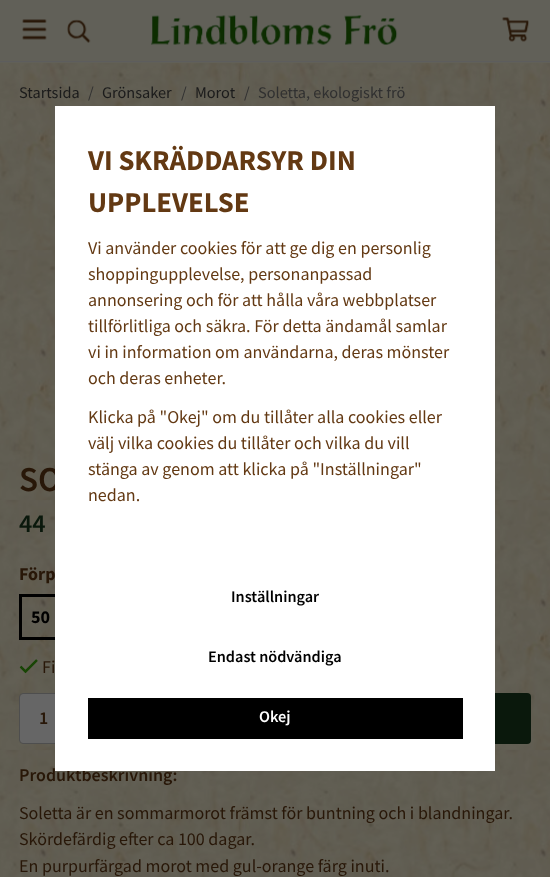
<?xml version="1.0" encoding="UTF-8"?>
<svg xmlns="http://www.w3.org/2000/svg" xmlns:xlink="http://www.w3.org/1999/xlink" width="550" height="877">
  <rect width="100%" height="100%" fill="#ffffff" />
  <image x="0" y="63" width="550" height="814" xlink:href="image1.png" />
  <rect width="550" height="63" fill="#616058" />
  <rect y="61" width="550" height="1" fill="#5d5d5d" />
  <image x="22" y="19" width="25" height="21" xlink:href="image2.png" />
  <image x="67" y="19" width="24" height="24" xlink:href="image3.png" />
  <image x="151" y="15" width="247" height="30" xlink:href="image4.png" />
  <image x="502" y="17" width="27" height="25" xlink:href="image5.png" />
  <rect x="20.5" y="595.5" width="87" height="43" fill="none" stroke="#000000" stroke-width="3" />
  <image x="19" y="659" width="19" height="15" xlink:href="image6.png" />
  <rect x="20" y="694" width="48" height="49" rx="2.5" fill="#666666" />
  <rect x="19.5" y="693.5" width="49" height="50" rx="3.5" fill="none" stroke="#4e4e4e" />
  <rect x="79" y="693" width="452" height="51" rx="4" fill="#0a180c" />
  <text x="19" y="98" style="font-family: Source Sans Pro; font-size: 16.25px; fill: #1b1b1b">Startsida</text>
  <text x="88" y="98" style="font-family: Source Sans Pro; font-size: 16.25px; fill: #303030">/</text>
  <text x="102" y="98" style="font-family: Source Sans Pro; font-size: 16.25px; fill: #1b1b1b">Grönsaker</text>
  <text x="181" y="98" style="font-family: Source Sans Pro; font-size: 16.25px; fill: #303030">/</text>
  <text x="195" y="98" style="font-family: Source Sans Pro; font-size: 16.25px; fill: #1b1b1b">Morot</text>
  <text x="244" y="98" style="font-family: Source Sans Pro; font-size: 16.25px; fill: #303030">/</text>
  <text x="258" y="98" style="font-family: Source Sans Pro; font-size: 16.25px; fill: #303030">Soletta, ekologiskt frö</text>
  <text x="19" y="491" style="font-family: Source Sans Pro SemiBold; font-size: 35px; font-weight: 600; fill: #281708">SO</text>
  <text x="19" y="532" style="font-family: Source Sans Pro SemiBold; font-size: 26px; font-weight: 600; fill: #0a180c">44</text>
  <text x="19" y="580" style="font-family: Source Sans Pro; font-size: 18px; font-weight: bold; fill: #281708">Förp</text>
  <text x="31" y="623" style="font-family: Source Sans Pro; font-size: 18px; font-weight: bold; fill: #000000">50</text>
  <text x="42" y="673" style="font-family: Source Sans Pro; font-size: 18px; fill: #281708">Fi</text>
  <text x="39" y="724" style="font-family: Source Sans Pro SemiBold; font-size: 18px; font-weight: 600; fill: #281708">1</text>
  <text x="19" y="781" style="font-family: Source Sans Pro SemiBold; font-size: 18px; font-weight: 600; fill: #281708">Produktbeskrivning:</text>
  <text x="19" y="819" style="font-family: Source Sans Pro; font-size: 18px; fill: #281708">Soletta är en sommarmorot främst för buntning och i blandningar.</text>
  <text x="19" y="845" style="font-family: Source Sans Pro; font-size: 18px; fill: #281708">Skördefärdig efter ca 100 dagar.</text>
  <text x="19" y="872" style="font-family: Source Sans Pro; font-size: 18px; fill: #281708">En purpurfärgad morot med gul-orange färg inuti.</text>
  <rect x="55" y="106" width="440" height="665" fill="#ffffff" />
  <text x="88" y="170" style="font-family: Source Sans Pro; font-size: 28.75px; font-weight: bold; fill: #633913">VI SKRÄDDARSYR DIN</text>
  <text x="88" y="212" style="font-family: Source Sans Pro; font-size: 28.75px; font-weight: bold; fill: #633913">UPPLEVELSE</text>
  <text x="88" y="254" style="font-family: Source Sans Pro; font-size: 18px; fill: #633913">Vi använder cookies för att ge dig en personlig</text>
  <text x="88" y="280" style="font-family: Source Sans Pro; font-size: 18px; fill: #633913">shoppingupplevelse, personanpassad</text>
  <text x="88" y="306" style="font-family: Source Sans Pro; font-size: 18px; fill: #633913">annonsering och för att hålla våra webbplatser</text>
  <text x="88" y="332" style="font-family: Source Sans Pro; font-size: 18px; fill: #633913">tillförlitliga och säkra. För detta ändamål samlar</text>
  <text x="88" y="358" style="font-family: Source Sans Pro; font-size: 18px; fill: #633913">vi in information om användarna, deras mönster</text>
  <text x="88" y="384" style="font-family: Source Sans Pro; font-size: 18px; fill: #633913">och deras enheter.</text>
  <text x="88" y="423" style="font-family: Source Sans Pro; font-size: 18px; fill: #633913">Klicka på "Okej" om du tillåter alla cookies eller</text>
  <text x="88" y="449" style="font-family: Source Sans Pro; font-size: 18px; fill: #633913">välj vilka cookies du tillåter och vilka du vill</text>
  <text x="88" y="475" style="font-family: Source Sans Pro; font-size: 18px; fill: #633913">stänga av genom att klicka på "Inställningar"</text>
  <text x="88" y="501" style="font-family: Source Sans Pro; font-size: 18px; fill: #633913">nedan.</text>
  <text x="231" y="602" style="font-family: Source Sans Pro SemiBold; font-size: 16.25px; font-weight: 600; fill: #000000">Inställningar</text>
  <text x="208" y="662" style="font-family: Source Sans Pro SemiBold; font-size: 16.25px; font-weight: 600; fill: #000000">Endast nödvändiga</text>
  <rect x="88" y="698" width="375" height="41" fill="#000000" />
  <text x="259" y="722" style="font-family: Source Sans Pro SemiBold; font-size: 16.25px; font-weight: 600; fill: #ffffff">Okej</text>
</svg>
